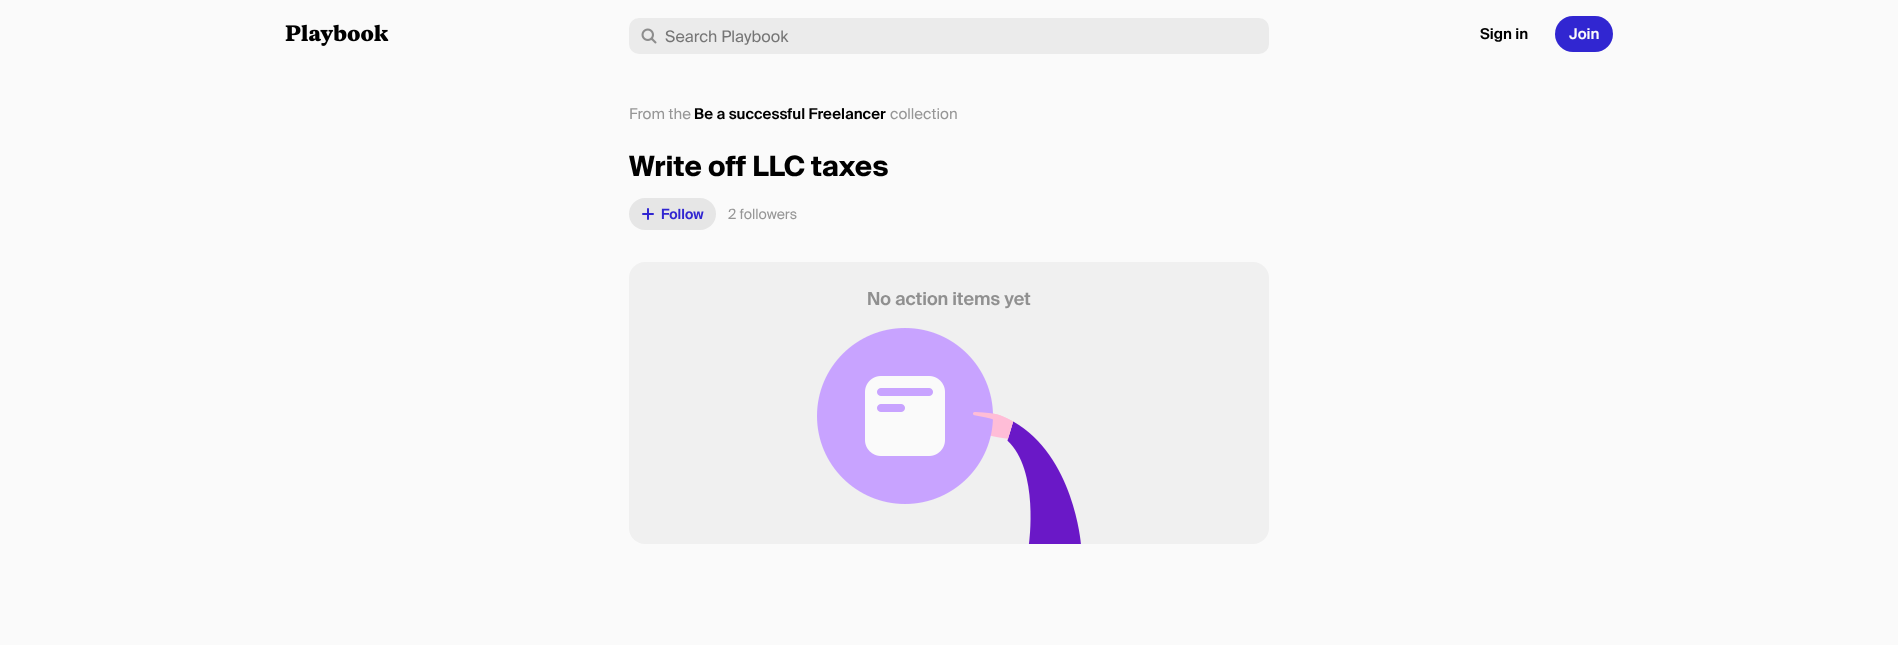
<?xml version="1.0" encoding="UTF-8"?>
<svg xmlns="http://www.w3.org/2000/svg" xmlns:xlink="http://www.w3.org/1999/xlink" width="1898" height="645">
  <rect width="100%" height="100%" fill="#fafafa" />
  <image x="285" y="24" width="104" height="22" xlink:href="image1.png" />
  <rect x="629" y="18" width="640" height="36" rx="10" fill="#ebebeb" />
  <image x="641" y="28" width="16" height="16" xlink:href="image2.png" />
  <rect x="1555" y="16" width="58" height="36" rx="18" fill="#3126d1" />
  <rect x="629" y="198" width="87" height="32" rx="16" fill="#e6e6e6" />
  <path d="M 653 214 h -10 m 5 5 v -10" fill="none" stroke="#3126d1" stroke-width="2" stroke-linecap="round" stroke-linejoin="round" />
  <rect x="629" y="262" width="640" height="282" rx="16" fill="#f0f0f0" />
  <image x="817" y="328" width="264" height="216" xlink:href="image3.png" />
  <text x="665" y="42" style="font-family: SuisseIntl; font-size: 16px; fill: #757575">Search Playbook</text>
  <text x="1480" y="39" style="font-family: SuisseIntl; font-size: 15px; font-weight: 600; fill: #000000">Sign in</text>
  <text x="1569" y="39" style="font-family: SuisseIntl; font-size: 15px; font-weight: 600; fill: #fafafa">Join</text>
  <text x="629" y="119" style="font-family: SuisseIntl; font-size: 15px; fill: #969696">From the</text>
  <text x="694" y="119" style="font-family: SuisseIntl; font-size: 15px; font-weight: 600; fill: #000000">Be a successful Freelancer</text>
  <text x="890" y="119" style="font-family: SuisseIntl; font-size: 15px; fill: #969696">collection</text>
  <text x="629" y="176" style="font-family: SuisseIntl; font-size: 28px; font-weight: bold; fill: #000000">Write off LLC taxes</text>
  <text x="661" y="219" style="font-family: SuisseIntl; font-size: 14px; font-weight: 600; fill: #3126d1">Follow</text>
  <text x="728" y="219" style="font-family: SuisseIntl; font-size: 14px; fill: #969696">2 followers</text>
  <text x="867" y="305" style="font-family: SuisseIntl; font-size: 18px; font-weight: 600; fill: #909090">No action items yet</text>
</svg>
